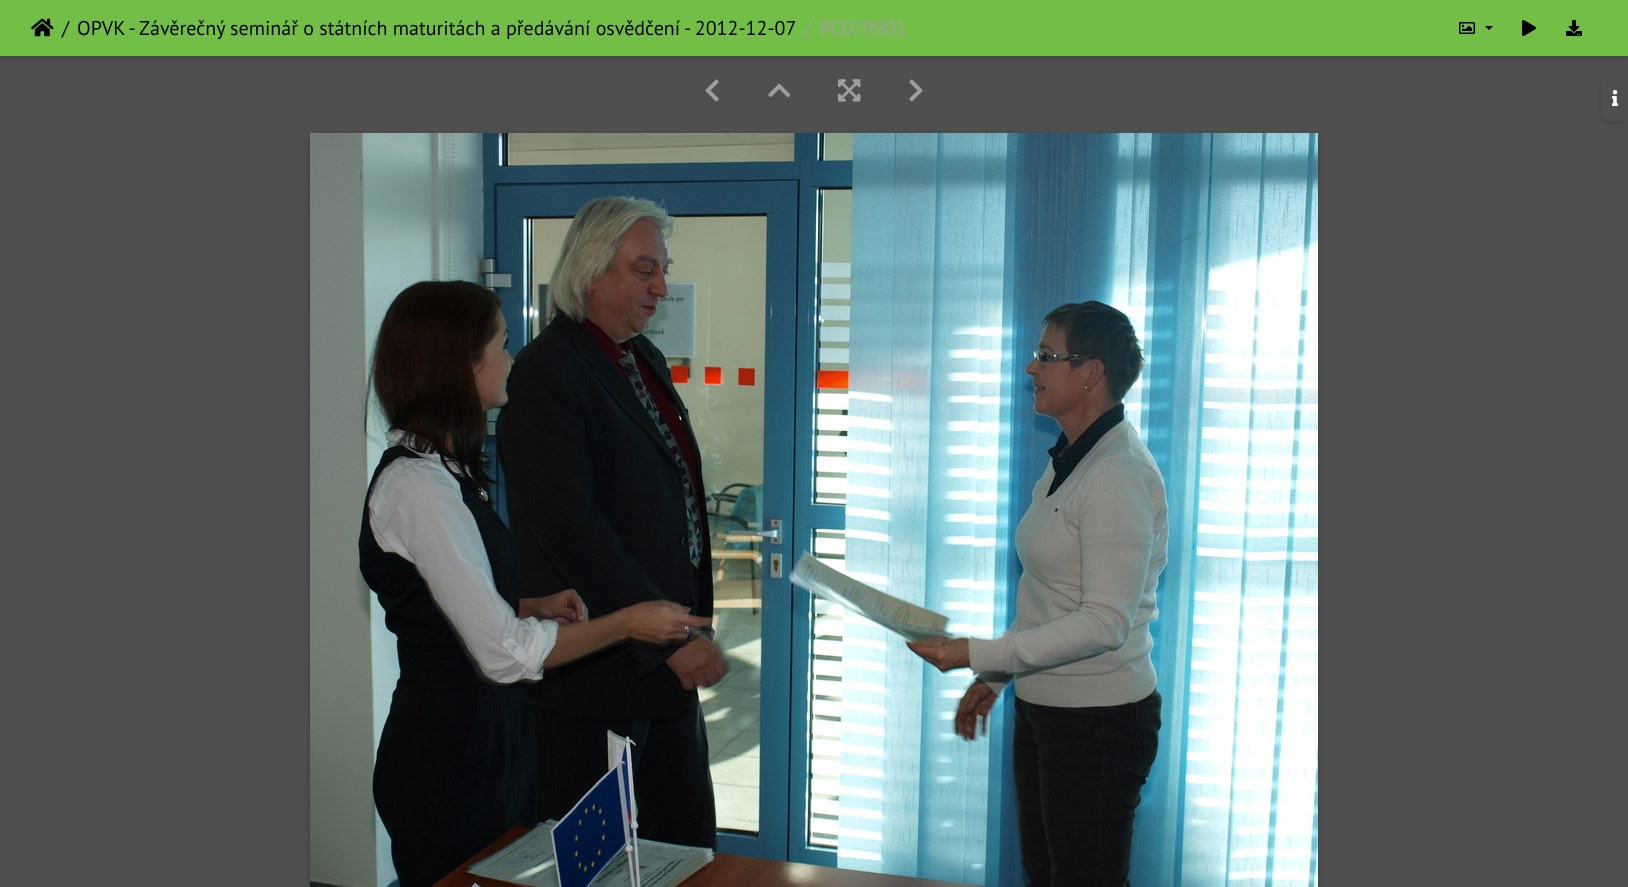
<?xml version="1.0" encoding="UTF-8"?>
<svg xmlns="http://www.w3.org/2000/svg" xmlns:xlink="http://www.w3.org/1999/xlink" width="1628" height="887">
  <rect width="100%" height="100%" fill="#4f4f4f" />
  <rect x="1" y="4" width="1626" height="54" fill="#000000" fill-opacity="0.2" filter="blur(2.5px)" />
  <rect width="1628" height="56" fill="#73be46" />
  <image x="31" y="18" width="23" height="19" xlink:href="image1.png" />
  <image x="1459" y="22" width="16" height="12" xlink:href="image2.png" />
  <path d="M 1485 26 h 8 l -4 4 z" fill="#000000" />
  <image x="1522" y="20" width="14" height="16" xlink:href="image3.png" />
  <image x="1566" y="20" width="16" height="16" xlink:href="image4.png" />
  <image x="705" y="79" width="14" height="23" xlink:href="image5.png" />
  <image x="768" y="83" width="22" height="14" xlink:href="image6.png" />
  <image x="838" y="79" width="23" height="23" xlink:href="image7.png" />
  <image x="909" y="79" width="14" height="23" xlink:href="image8.png" />
  <rect x="1602" y="79" width="25" height="44" rx="9" fill="#000000" fill-opacity="0.2" filter="blur(2.5px)" />
  <path d="M 1611 75 h 17 v 46 h -17 c -5.5 0 -10 -4.5 -10 -10 v -26 c 0 -5.5 4.5 -10 10 -10 z" fill="#4f4f4f" />
  <path d="M 1611 75 h 17 v 46 h -17 c -6 0 -10 -4 -10 -10 v -26 c 0 -6 4 -10 10 -10 z m 0 1 h 17 v 44 h -17 c -5 0 -9 -4 -9 -9 v -26 c 0 -5 4 -9 9 -9 z" fill="#4f4f4f" fill-rule="evenodd" />
  <image x="1612" y="90" width="6" height="16" xlink:href="image9.png" />
  <rect x="310" y="136" width="1008" height="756" fill="#000000" fill-opacity="0.23" filter="blur(3px)" />
  <image x="310" y="133" width="1008" height="754" xlink:href="image10.png" />
  <text x="62" y="35" style="font-family: PT Sans; font-size: 20px; fill: #000000">/</text>
  <text x="77" y="35" style="font-family: PT Sans; font-size: 20px; fill: #000000">OPVK - Závěrečný seminář o státních maturitách a předávání osvědčení - 2012-12-07</text>
  <text x="804" y="35" style="font-family: PT Sans; font-size: 20px; fill: #9e9e9e">/</text>
  <text x="819" y="35" style="font-family: PT Sans; font-size: 20px; fill: #9e9e9e">PC079901</text>
</svg>
